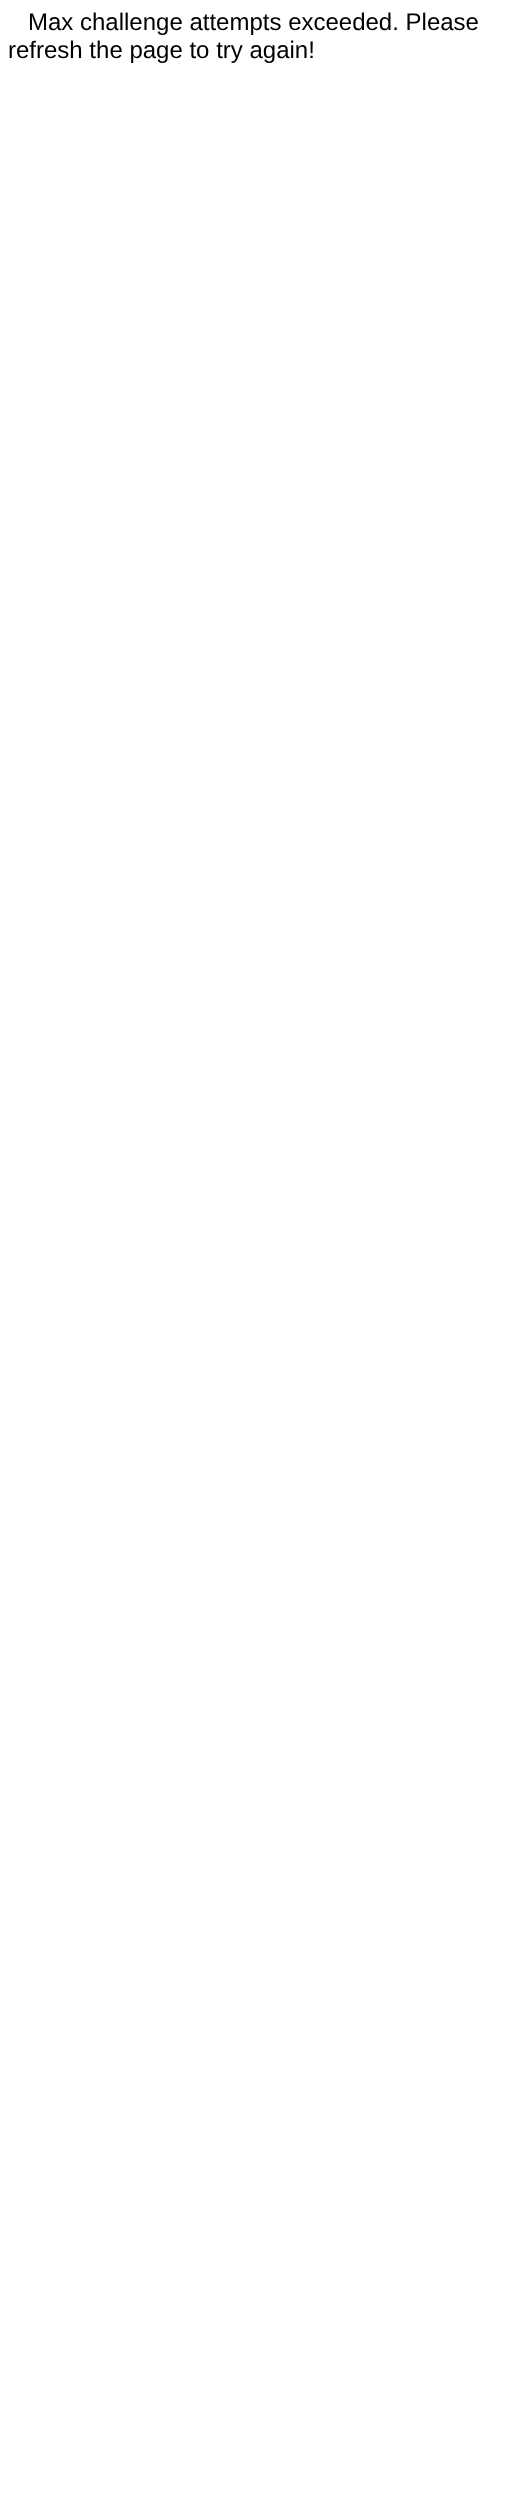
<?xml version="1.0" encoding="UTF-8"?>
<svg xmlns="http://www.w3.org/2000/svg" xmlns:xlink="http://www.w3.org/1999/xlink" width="511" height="2519">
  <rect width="100%" height="100%" fill="#ffffff" />
  <text x="28" y="30" style="font-family: Liberation Sans; font-size: 24px; fill: #000000">Max challenge attempts exceeded. Please</text>
  <text x="8" y="58" style="font-family: Liberation Sans; font-size: 24px; fill: #000000">refresh the page to try again!</text>
</svg>
